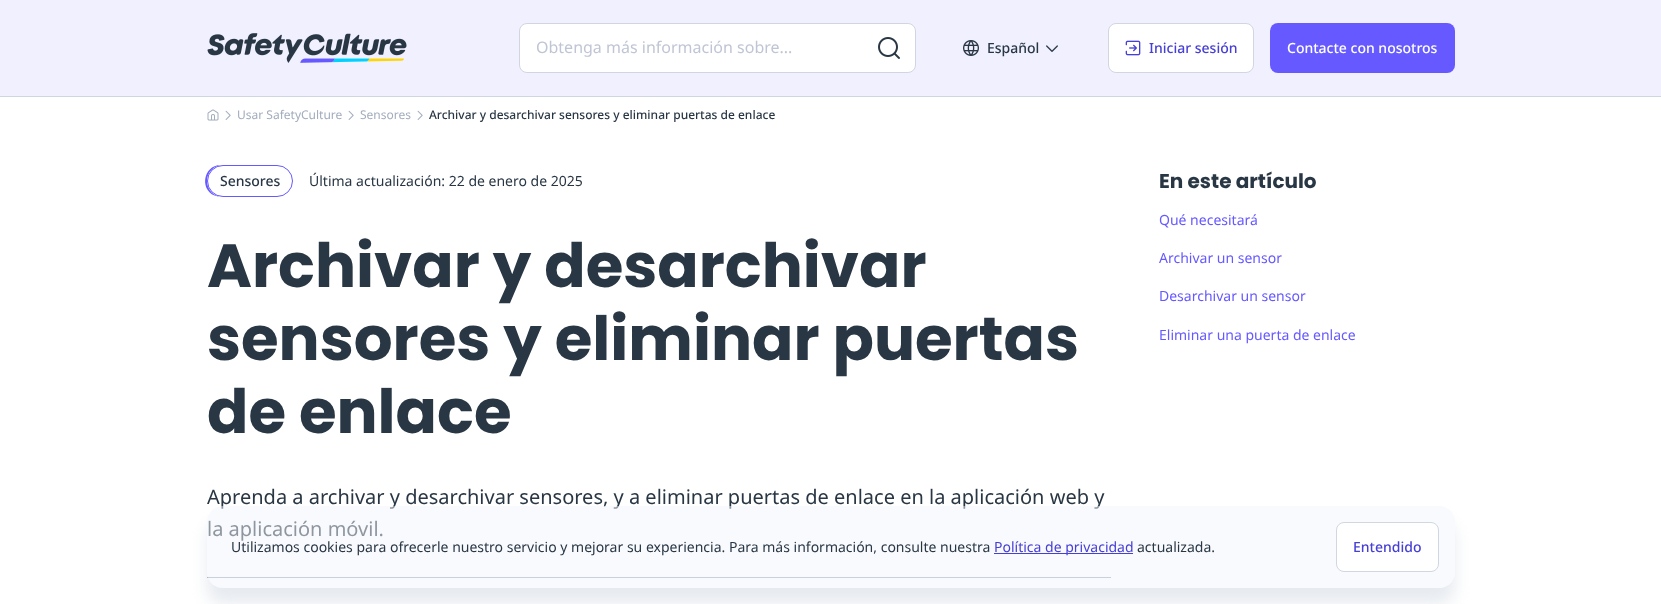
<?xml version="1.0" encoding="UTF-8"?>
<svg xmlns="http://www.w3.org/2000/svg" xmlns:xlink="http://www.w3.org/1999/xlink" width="1661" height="604">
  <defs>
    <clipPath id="clip1"><path d="M 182 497 h 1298 v 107 h -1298 z m 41 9 h 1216 c 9 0 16 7 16 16 v 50 c 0 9 -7 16 -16 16 h -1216 c -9 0 -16 -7 -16 -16 v -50 c 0 -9 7 -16 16 -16 z" clip-rule="evenodd" /></clipPath>
  </defs>
  <rect width="100%" height="100%" fill="#ffffff" />
  <rect width="1661" height="96" fill="#f0f0ff" />
  <rect y="96" width="1661" height="1" fill="#d0d6e1" />
  <image x="207" y="33" width="200" height="30" xlink:href="image1.png" />
  <rect x="519.5" y="23.5" width="396" height="49" rx="7.5" fill="#ffffff" stroke="#d0d6e1" />
  <image x="878" y="37" width="22" height="22" xlink:href="image2.png" />
  <image x="963" y="40" width="16" height="16" xlink:href="image3.png" />
  <image x="1046" y="45" width="12" height="7" xlink:href="image4.png" />
  <rect x="1108.5" y="23.5" width="145" height="49" rx="7.5" fill="#ffffff" stroke="#d0d7e1" />
  <image x="1125" y="40" width="16" height="16" xlink:href="image5.png" />
  <rect x="1270" y="23" width="185" height="50" rx="8" fill="#6559ff" />
  <image x="207" y="109" width="12" height="12" xlink:href="image6.png" />
  <image x="225" y="110" width="6" height="10" xlink:href="image7.png" />
  <image x="348" y="110" width="6" height="10" xlink:href="image7.png" />
  <image x="417" y="110" width="6" height="10" xlink:href="image7.png" />
  <path d="M 221 165 c -19 0 -22 28 -3 31.5 l 5 0.5 c -9 0 -16 -7 -16 -16 c 0 -9 7 -16 16 -16 z" fill="#6559ff" />
  <rect x="207.5" y="165.5" width="85" height="31" rx="15.5" fill="none" stroke="#6559ff" />
  <rect x="207" y="577" width="904" height="1" fill="#a2acbd" />
  <g clip-path="url(#clip1)">
    <rect x="207" y="522" width="1248" height="82" rx="16" fill="#d0d7e1" fill-opacity="0.5" filter="blur(8px)" />
  </g>
  <text x="536" y="53" style="font-family: Noto Sans; font-size: 16px; fill: #bfc5d4">Obtenga más información sobre...</text>
  <text x="987" y="53" style="font-family: Noto Sans; font-size: 14px; font-weight: 500; fill: #293745">Español</text>
  <text x="1149" y="53" style="font-family: Noto Sans; font-size: 14px; font-weight: 500; fill: #4740d4">Iniciar sesión</text>
  <text x="1287" y="53" style="font-family: Noto Sans; font-size: 14px; font-weight: 500; fill: #ffffff">Contacte con nosotros</text>
  <text x="237" y="119" style="font-family: Noto Sans; font-size: 12px; fill: #a2acbd">Usar SafetyCulture</text>
  <text x="360" y="119" style="font-family: Noto Sans; font-size: 12px; fill: #a2acbd">Sensores</text>
  <text x="429" y="119" style="font-family: Noto Sans; font-size: 12px; font-weight: 500; fill: #293745">Archivar y desarchivar sensores y eliminar puertas de enlace</text>
  <text x="220" y="186" style="font-family: Noto Sans; font-size: 14px; font-weight: 500; fill: #293745">Sensores</text>
  <text x="309" y="186" style="font-family: Noto Sans; font-size: 14px; fill: #293745">Última actualización: 22 de enero de 2025</text>
  <text x="207" y="287" style="font-family: Poppins; font-size: 61px; font-weight: bold; fill: #293745">Archivar y desarchivar</text>
  <text x="207" y="360" style="font-family: Poppins; font-size: 61px; font-weight: bold; fill: #293745">sensores y eliminar puertas</text>
  <text x="207" y="433" style="font-family: Poppins; font-size: 61px; font-weight: bold; fill: #293745">de enlace</text>
  <text x="207" y="504" style="font-family: Noto Sans; font-size: 20px; fill: #293745">Aprenda a archivar y desarchivar sensores, y a eliminar puertas de enlace en la aplicación web y</text>
  <text x="207" y="536" style="font-family: Noto Sans; font-size: 20px; fill: #293745">la aplicación móvil.</text>
  <text x="1159" y="188" style="font-family: Poppins; font-size: 20px; font-weight: bold; fill: #293745">En este artículo</text>
  <text x="1159" y="225" style="font-family: Noto Sans; font-size: 14px; fill: #6559ff">Qué necesitará</text>
  <text x="1159" y="263" style="font-family: Noto Sans; font-size: 14px; fill: #6559ff">Archivar un sensor</text>
  <text x="1159" y="301" style="font-family: Noto Sans; font-size: 14px; fill: #6559ff">Desarchivar un sensor</text>
  <text x="1159" y="340" style="font-family: Noto Sans; font-size: 14px; fill: #6559ff">Eliminar una puerta de enlace</text>
  <rect x="207" y="506" width="1248" height="82" rx="16" fill="#f3f6fb" fill-opacity="0.5" />
  <text x="231" y="552" style="font-family: Noto Sans; font-size: 14px; fill: #293745">Utilizamos cookies para ofrecerle nuestro servicio y mejorar su experiencia. Para más información, consulte nuestra</text>
  <rect x="994" y="553" width="139" height="1" fill="#4740d4" />
  <text x="994" y="552" style="font-family: Noto Sans; font-size: 14px; fill: #4740d4">Política de privacidad</text>
  <text x="1137" y="552" style="font-family: Noto Sans; font-size: 14px; fill: #293745">actualizada.</text>
  <rect x="1336.5" y="522.5" width="102" height="49" rx="7.5" fill="#ffffff" stroke="#d0d7e1" />
  <text x="1353" y="552" style="font-family: Noto Sans; font-size: 14px; font-weight: 500; fill: #4740d4">Entendido</text>
</svg>
